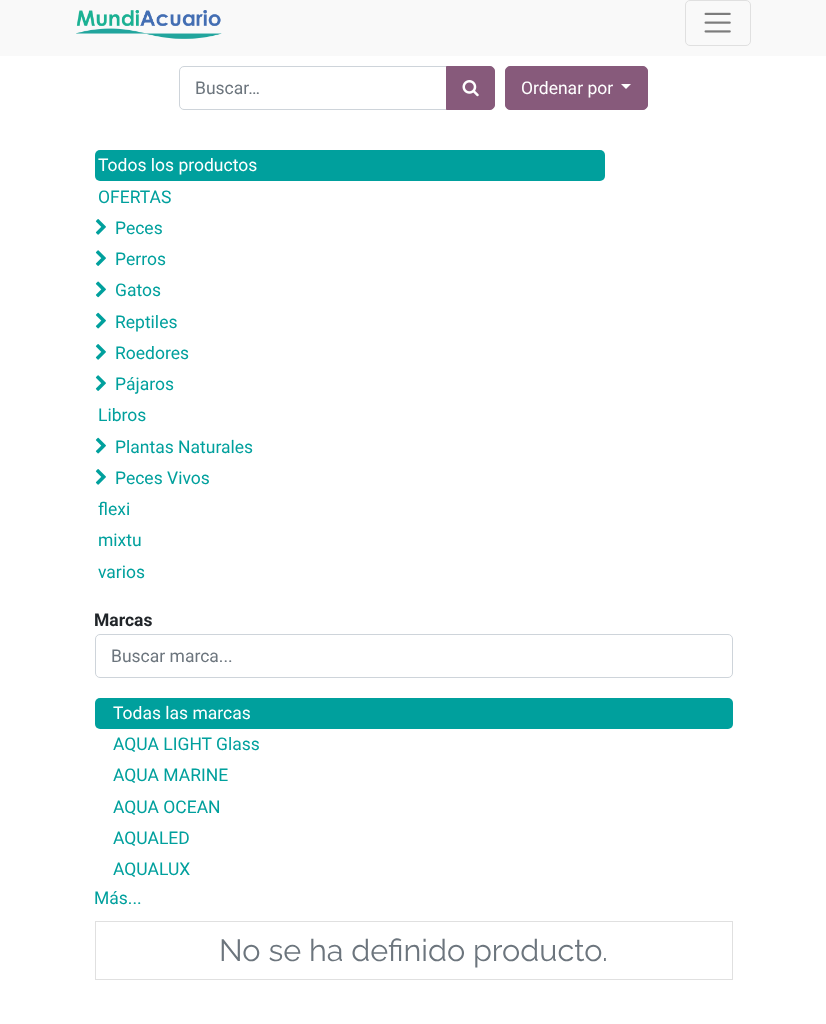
<?xml version="1.0" encoding="UTF-8"?>
<svg xmlns="http://www.w3.org/2000/svg" xmlns:xlink="http://www.w3.org/1999/xlink" width="826" height="1024">
  <rect width="100%" height="100%" fill="#ffffff" />
  <rect width="826" height="56" fill="#f9f9f9" />
  <image x="76" y="10" width="146" height="29" xlink:href="image1.png" />
  <rect x="685.5" y="0.5" width="65" height="45" rx="4.5" fill="none" stroke="#e0e0e0" />
  <image x="704" y="12" width="27" height="21" xlink:href="image2.png" />
  <path d="M 184 66.5 h 263.5 v 43 h -263.5 c -2.5 0 -4.5 -2 -4.5 -4.5 v -34 c 0 -2.5 2 -4.5 4.5 -4.5 z" fill="none" stroke="#ced4da" />
  <path d="M 446.5 66.5 h 43.5 c 2.5 0 4.5 2 4.5 4.5 v 34 c 0 2.5 -2 4.5 -4.5 4.5 h -43.5 z" fill="#875a7b" stroke="#875a7b" />
  <image x="462" y="80" width="17" height="17" xlink:href="image3.png" />
  <rect x="505.5" y="66.5" width="142" height="43" rx="4.5" fill="#875a7b" stroke="#875a7b" />
  <path d="M 621 84 h 10 l -5 5 z" fill="#ffffff" />
  <rect x="95" y="150" width="510" height="31" rx="5" fill="#00a09d" />
  <image x="95" y="219" width="11" height="16" xlink:href="image4.png" />
  <image x="95" y="250" width="11" height="16" xlink:href="image5.png" />
  <image x="95" y="281" width="11" height="17" xlink:href="image6.png" />
  <image x="95" y="312" width="11" height="17" xlink:href="image7.png" />
  <image x="95" y="344" width="11" height="16" xlink:href="image4.png" />
  <image x="95" y="375" width="11" height="16" xlink:href="image5.png" />
  <image x="95" y="437" width="11" height="17" xlink:href="image7.png" />
  <image x="95" y="469" width="11" height="16" xlink:href="image4.png" />
  <rect x="95.5" y="634.5" width="637" height="43" rx="4.5" fill="none" stroke="#ced4da" />
  <rect x="95" y="698" width="638" height="31" rx="5" fill="#00a09d" />
  <rect x="95.5" y="921.5" width="637" height="58" fill="none" stroke="#e0e0e0" />
  <text x="195" y="94" style="font-family: Roboto; font-size: 17.5px; fill: #6c757d">Buscar…</text>
  <text x="521" y="94" style="font-family: Roboto; font-size: 17.5px; fill: #ffffff">Ordenar por</text>
  <text x="98" y="171" style="font-family: Roboto; font-size: 17.5px; fill: #ffffff">Todos los productos</text>
  <text x="98" y="203" style="font-family: Roboto; font-size: 17.5px; fill: #00a09d">OFERTAS</text>
  <text x="115" y="234" style="font-family: Roboto; font-size: 17.5px; fill: #00a09d">Peces</text>
  <text x="115" y="265" style="font-family: Roboto; font-size: 17.5px; fill: #00a09d">Perros</text>
  <text x="115" y="296" style="font-family: Roboto; font-size: 17.5px; fill: #00a09d">Gatos</text>
  <text x="115" y="328" style="font-family: Roboto; font-size: 17.5px; fill: #00a09d">Reptiles</text>
  <text x="115" y="359" style="font-family: Roboto; font-size: 17.5px; fill: #00a09d">Roedores</text>
  <text x="115" y="390" style="font-family: Roboto; font-size: 17.5px; fill: #00a09d">Pájaros</text>
  <text x="98" y="421" style="font-family: Roboto; font-size: 17.5px; fill: #00a09d">Libros</text>
  <text x="115" y="453" style="font-family: Roboto; font-size: 17.5px; fill: #00a09d">Plantas Naturales</text>
  <text x="115" y="484" style="font-family: Roboto; font-size: 17.5px; fill: #00a09d">Peces Vivos</text>
  <text x="98" y="515" style="font-family: Roboto; font-size: 17.5px; fill: #00a09d">flexi</text>
  <text x="98" y="546" style="font-family: Roboto; font-size: 17.5px; fill: #00a09d">mixtu</text>
  <text x="98" y="578" style="font-family: Roboto; font-size: 17.5px; fill: #00a09d">varios</text>
  <text x="94" y="626" style="font-family: Roboto; font-size: 17.5px; font-weight: bold; fill: #212529">Marcas</text>
  <text x="111" y="662" style="font-family: Roboto; font-size: 17.5px; fill: #6c757d">Buscar marca...</text>
  <text x="113" y="719" style="font-family: Roboto; font-size: 17.5px; fill: #ffffff">Todas las marcas</text>
  <text x="113" y="750" style="font-family: Roboto; font-size: 17.5px; fill: #00a09d">AQUA LIGHT Glass</text>
  <text x="113" y="781" style="font-family: Roboto; font-size: 17.5px; fill: #00a09d">AQUA MARINE</text>
  <text x="113" y="813" style="font-family: Roboto; font-size: 17.5px; fill: #00a09d">AQUA OCEAN</text>
  <text x="113" y="844" style="font-family: Roboto; font-size: 17.5px; fill: #00a09d">AQUALED</text>
  <text x="113" y="875" style="font-family: Roboto; font-size: 17.5px; fill: #00a09d">AQUALUX</text>
  <text x="94" y="904" style="font-family: Roboto; font-size: 17.5px; fill: #00a09d">Más...</text>
  <text x="219" y="961" style="font-family: Raleway; font-size: 30.6px; fill: #6c757d">No se ha definido producto.</text>
</svg>
